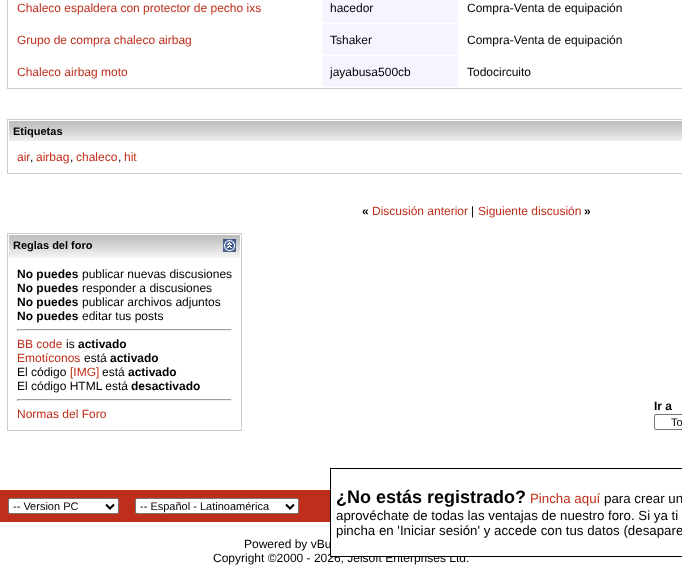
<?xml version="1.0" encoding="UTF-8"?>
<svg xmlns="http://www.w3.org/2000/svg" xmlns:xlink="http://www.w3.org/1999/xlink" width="682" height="568">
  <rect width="100%" height="100%" fill="#ffffff" />
  <rect x="7.5" y="-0.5" width="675" height="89" fill="none" stroke="#cccccc" />
  <rect x="322" width="136" height="23" fill="#f5f5ff" />
  <rect x="322" y="24" width="136" height="31" fill="#f5f5ff" />
  <rect x="322" y="56" width="136" height="31" fill="#f5f5ff" />
  <rect x="7.5" y="119.5" width="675" height="54" fill="none" stroke="#cccccc" />
  <image x="9" y="121" width="673" height="20" xlink:href="image1.png" />
  <rect x="7.5" y="233.5" width="234" height="197" fill="none" stroke="#cccccc" />
  <image x="9" y="235" width="231" height="23" xlink:href="image2.png" />
  <image x="223" y="239" width="13" height="13" xlink:href="image3.png" />
  <rect x="17" y="329" width="215" height="1" fill="#9f9f9f" />
  <rect x="231" y="329" width="1" height="2" fill="#eeeeee" />
  <rect x="17" y="330" width="215" height="1" fill="#eeeeee" />
  <rect x="17" y="329" width="1" height="2" fill="#9f9f9f" />
  <rect x="17" y="399" width="215" height="1" fill="#9f9f9f" />
  <rect x="231" y="399" width="1" height="2" fill="#eeeeee" />
  <rect x="17" y="400" width="215" height="1" fill="#eeeeee" />
  <rect x="17" y="399" width="1" height="2" fill="#9f9f9f" />
  <rect x="654.5" y="414.5" width="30" height="15" rx="1.5" fill="none" stroke="#767676" />
  <rect y="490" width="330" height="32" fill="#bf2e1a" />
  <rect x="8.5" y="498.5" width="110" height="15" rx="1.5" fill="#ffffff" stroke="#767676" />
  <path d="M 106 504.5 l 4 4 l 4 -4" fill="none" stroke="#000000" stroke-width="2" />
  <rect x="135.5" y="498.5" width="163" height="15" rx="1.5" fill="#ffffff" stroke="#767676" />
  <path d="M 286 504.5 l 4 4 l 4 -4" fill="none" stroke="#000000" stroke-width="2" />
  <text x="17" y="12" style="font-family: Liberation Sans; font-size: 12px; fill: #bf2e1a">Chaleco espaldera con protector de pecho ixs</text>
  <text x="330" y="12" style="font-family: Liberation Sans; font-size: 12px; fill: #000000">hacedor</text>
  <text x="467" y="12" style="font-family: Liberation Sans; font-size: 12px; fill: #000000">Compra-Venta de equipación</text>
  <text x="17" y="44" style="font-family: Liberation Sans; font-size: 12px; fill: #bf2e1a">Grupo de compra chaleco airbag</text>
  <text x="330" y="44" style="font-family: Liberation Sans; font-size: 12px; fill: #000000">Tshaker</text>
  <text x="467" y="44" style="font-family: Liberation Sans; font-size: 12px; fill: #000000">Compra-Venta de equipación</text>
  <text x="17" y="76" style="font-family: Liberation Sans; font-size: 12px; fill: #bf2e1a">Chaleco airbag moto</text>
  <text x="330" y="76" style="font-family: Liberation Sans; font-size: 12px; fill: #000000">jayabusa500cb</text>
  <text x="467" y="76" style="font-family: Liberation Sans; font-size: 12px; fill: #000000">Todocircuito</text>
  <text x="13" y="135" style="font-family: Liberation Sans; font-size: 11px; font-weight: bold; fill: #000000">Etiquetas</text>
  <text x="17" y="161" style="font-family: Liberation Sans; font-size: 12px; fill: #bf2e1a">air</text>
  <text x="36" y="161" style="font-family: Liberation Sans; font-size: 12px; fill: #bf2e1a">airbag</text>
  <text x="76" y="161" style="font-family: Liberation Sans; font-size: 12px; fill: #bf2e1a">chaleco</text>
  <text x="124" y="161" style="font-family: Liberation Sans; font-size: 12px; fill: #bf2e1a">hit</text>
  <text x="30" y="161" style="font-family: Liberation Sans; font-size: 12px; fill: #000000">,</text>
  <text x="70" y="161" style="font-family: Liberation Sans; font-size: 12px; fill: #000000">,</text>
  <text x="118" y="161" style="font-family: Liberation Sans; font-size: 12px; fill: #000000">,</text>
  <text x="362" y="215" style="font-family: Liberation Sans; font-size: 12px; font-weight: bold; fill: #000000">«</text>
  <text x="372" y="215" style="font-family: Liberation Sans; font-size: 12px; fill: #bf2e1a">Discusión anterior</text>
  <text x="471" y="215" style="font-family: Liberation Sans; font-size: 12px; fill: #000000">|</text>
  <text x="478" y="215" style="font-family: Liberation Sans; font-size: 12px; fill: #bf2e1a">Siguiente discusión</text>
  <text x="584" y="215" style="font-family: Liberation Sans; font-size: 12px; font-weight: bold; fill: #000000">»</text>
  <text x="13" y="249" style="font-family: Liberation Sans; font-size: 11px; font-weight: bold; fill: #000000">Reglas del foro</text>
  <text x="17" y="278" style="font-family: Liberation Sans; font-size: 12px; font-weight: bold; fill: #000000">No puedes</text>
  <text x="82" y="278" style="font-family: Liberation Sans; font-size: 12px; fill: #000000">publicar nuevas discusiones</text>
  <text x="17" y="292" style="font-family: Liberation Sans; font-size: 12px; font-weight: bold; fill: #000000">No puedes</text>
  <text x="82" y="292" style="font-family: Liberation Sans; font-size: 12px; fill: #000000">responder a discusiones</text>
  <text x="17" y="306" style="font-family: Liberation Sans; font-size: 12px; font-weight: bold; fill: #000000">No puedes</text>
  <text x="82" y="306" style="font-family: Liberation Sans; font-size: 12px; fill: #000000">publicar archivos adjuntos</text>
  <text x="17" y="320" style="font-family: Liberation Sans; font-size: 12px; font-weight: bold; fill: #000000">No puedes</text>
  <text x="82" y="320" style="font-family: Liberation Sans; font-size: 12px; fill: #000000">editar tus posts</text>
  <text x="17" y="348" style="font-family: Liberation Sans; font-size: 12px; fill: #bf2e1a">BB code</text>
  <text x="66" y="348" style="font-family: Liberation Sans; font-size: 12px; fill: #000000">is</text>
  <text x="78" y="348" style="font-family: Liberation Sans; font-size: 12px; font-weight: bold; fill: #000000">activado</text>
  <text x="17" y="362" style="font-family: Liberation Sans; font-size: 12px; fill: #bf2e1a">Emotíconos</text>
  <text x="84" y="362" style="font-family: Liberation Sans; font-size: 12px; fill: #000000">está</text>
  <text x="110" y="362" style="font-family: Liberation Sans; font-size: 12px; font-weight: bold; fill: #000000">activado</text>
  <text x="17" y="376" style="font-family: Liberation Sans; font-size: 12px; fill: #000000">El código</text>
  <text x="70" y="376" style="font-family: Liberation Sans; font-size: 12px; fill: #bf2e1a">[IMG]</text>
  <text x="102" y="376" style="font-family: Liberation Sans; font-size: 12px; fill: #000000">está</text>
  <text x="128" y="376" style="font-family: Liberation Sans; font-size: 12px; font-weight: bold; fill: #000000">activado</text>
  <text x="17" y="390" style="font-family: Liberation Sans; font-size: 12px; fill: #000000">El código HTML está</text>
  <text x="131" y="390" style="font-family: Liberation Sans; font-size: 12px; font-weight: bold; fill: #000000">desactivado</text>
  <text x="17" y="418" style="font-family: Liberation Sans; font-size: 12px; fill: #bf2e1a">Normas del Foro</text>
  <text x="654" y="410" style="font-family: Liberation Sans; font-size: 12px; font-weight: bold; fill: #000000">Ir a</text>
  <text x="671" y="426" style="font-family: Liberation Sans; font-size: 11px; fill: #000000">To</text>
  <text x="13" y="510" style="font-family: Liberation Sans; font-size: 11px; fill: #000000">-- Version PC</text>
  <text x="140" y="510" style="font-family: Liberation Sans; font-size: 11px; fill: #000000">-- Español - Latinoamérica</text>
  <text x="244" y="548" style="font-family: Liberation Sans; font-size: 12px; fill: #000000">Powered by vBu</text>
  <text x="213" y="562" style="font-family: Liberation Sans; font-size: 12px; fill: #000000">Copyright ©2000 - 2026, Jelsoft Enterprises Ltd.</text>
  <rect x="331" y="553" width="135" height="3" fill="#ffffff" />
  <rect x="330.5" y="468.5" width="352" height="88" fill="none" stroke="#000000" />
  <text x="336" y="503" style="font-family: Liberation Sans; font-size: 18px; font-weight: bold; fill: #000000">¿No estás registrado?</text>
  <text x="530" y="503" style="font-family: Liberation Sans; font-size: 13.3px; fill: #bf2e1a">Pincha aquí</text>
  <text x="604" y="503" style="font-family: Liberation Sans; font-size: 13.3px; fill: #000000">para crear un</text>
  <text x="336" y="520" style="font-family: Liberation Sans; font-size: 13.3px; fill: #000000">aprovéchate de todas las ventajas de nuestro foro. Si ya ti</text>
  <text x="336" y="535" style="font-family: Liberation Sans; font-size: 13.3px; fill: #000000">pincha en 'Iniciar sesión' y accede con tus datos (desapare</text>
</svg>
